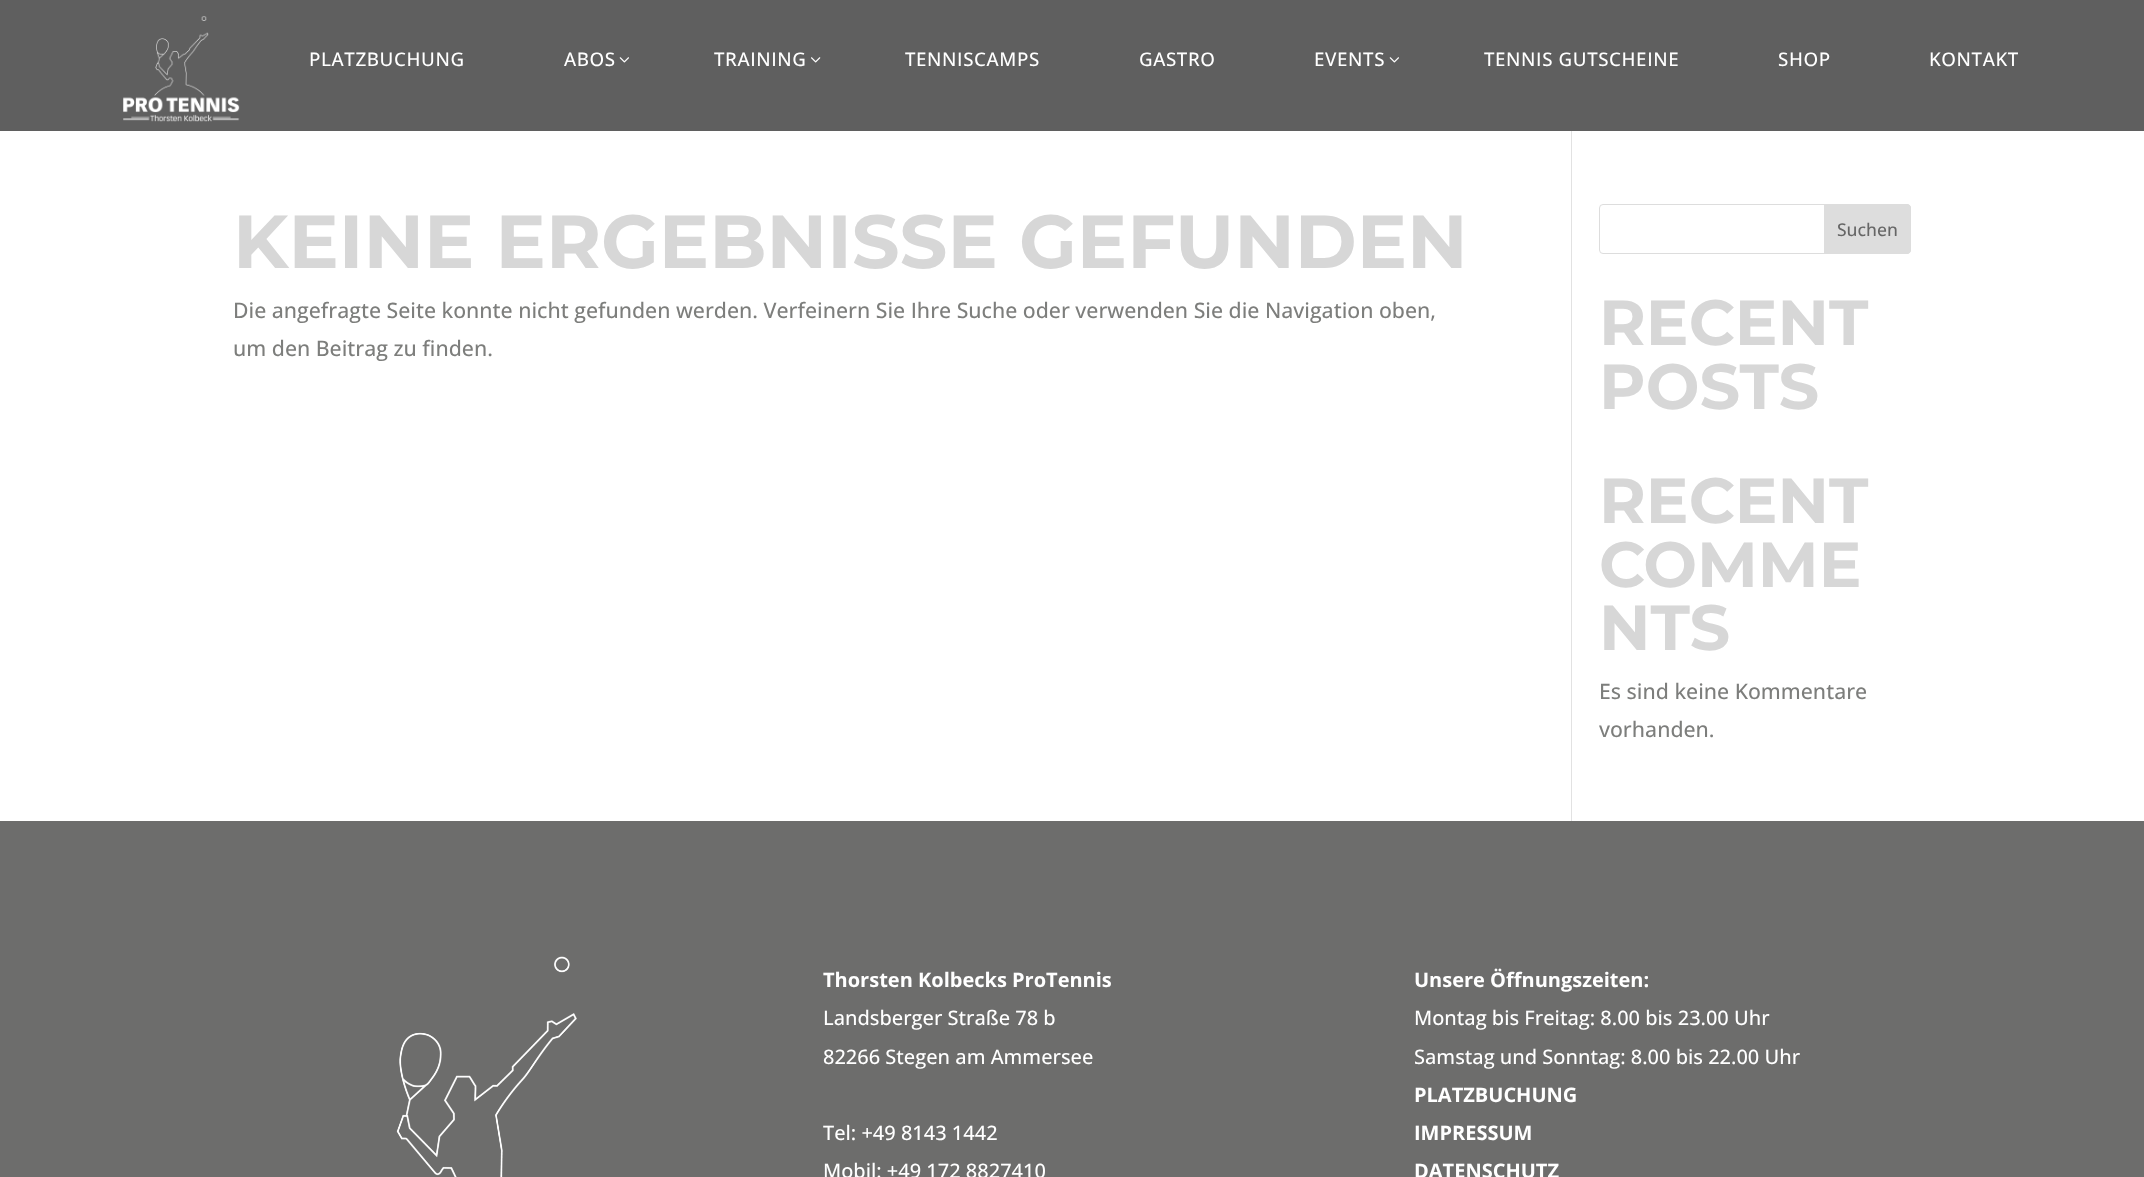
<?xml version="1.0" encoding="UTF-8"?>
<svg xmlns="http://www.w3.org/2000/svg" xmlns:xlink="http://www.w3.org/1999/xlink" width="2144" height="1177">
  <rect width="100%" height="100%" fill="#ffffff" />
  <rect width="2144" height="131" fill="#5f5f5f" />
  <image x="123" y="16" width="117" height="106" xlink:href="image1.png" />
  <image x="619" y="57" width="10" height="6" xlink:href="image2.png" />
  <image x="811" y="57" width="10" height="6" xlink:href="image3.png" />
  <image x="1389" y="57" width="10" height="6" xlink:href="image2.png" />
  <rect x="1571" y="131" width="1" height="690" fill="#e2e2e2" />
  <rect x="1599.5" y="204.5" width="311" height="49" rx="3.5" fill="none" stroke="#dddddd" />
  <path d="M 1824.5 204.5 h 82.5 c 2 0 3.5 1.5 3.5 3.5 v 42 c 0 2 -1.5 3.5 -3.5 3.5 h -82.5 z" fill="#dddddd" stroke="#dddddd" />
  <rect y="821" width="2144" height="356" fill="#6d6d6c" />
  <image x="396" y="956" width="181" height="221" xlink:href="image4.png" />
  <text x="309" y="66" style="font-family: Open Sans; font-size: 18.75px; font-weight: 500; letter-spacing: 0.6px; fill: #ffffff">PLATZBUCHUNG</text>
  <text x="564" y="66" style="font-family: Open Sans; font-size: 18.75px; font-weight: 500; letter-spacing: 0.6px; fill: #ffffff">ABOS</text>
  <text x="714" y="66" style="font-family: Open Sans; font-size: 18.75px; font-weight: 500; letter-spacing: 0.6px; fill: #ffffff">TRAINING</text>
  <text x="905" y="66" style="font-family: Open Sans; font-size: 18.75px; font-weight: 500; letter-spacing: 0.6px; fill: #ffffff">TENNISCAMPS</text>
  <text x="1139" y="66" style="font-family: Open Sans; font-size: 18.75px; font-weight: 500; letter-spacing: 0.6px; fill: #ffffff">GASTRO</text>
  <text x="1314" y="66" style="font-family: Open Sans; font-size: 18.75px; font-weight: 500; letter-spacing: 0.6px; fill: #ffffff">EVENTS</text>
  <text x="1484" y="66" style="font-family: Open Sans; font-size: 18.75px; font-weight: 500; letter-spacing: 0.6px; fill: #ffffff">TENNIS GUTSCHEINE</text>
  <text x="1778" y="66" style="font-family: Open Sans; font-size: 18.75px; font-weight: 500; letter-spacing: 0.6px; fill: #ffffff">SHOP</text>
  <text x="1929" y="66" style="font-family: Open Sans; font-size: 18.75px; font-weight: 500; letter-spacing: 0.6px; fill: #ffffff">KONTAKT</text>
  <text x="233" y="268" style="font-family: Montserrat; font-size: 75px; font-weight: bold; fill: #d7d7d7">KEINE ERGEBNISSE GEFUNDEN</text>
  <text x="233" y="318" style="font-family: Open Sans; font-size: 21.25px; font-weight: 500; fill: #7d7e7c">Die angefragte Seite konnte nicht gefunden werden. Verfeinern Sie Ihre Suche oder verwenden Sie die Navigation oben,</text>
  <text x="233" y="356" style="font-family: Open Sans; font-size: 21.25px; font-weight: 500; fill: #7d7e7c">um den Beitrag zu finden.</text>
  <text x="1837" y="236" style="font-family: Open Sans; font-size: 17.5px; font-weight: 500; fill: #666666">Suchen</text>
  <text x="1599" y="345" style="font-family: Montserrat; font-size: 63.75px; font-weight: bold; fill: #d7d7d7">RECENT</text>
  <text x="1599" y="409" style="font-family: Montserrat; font-size: 63.75px; font-weight: bold; fill: #d7d7d7">POSTS</text>
  <text x="1599" y="523" style="font-family: Montserrat; font-size: 63.75px; font-weight: bold; fill: #d7d7d7">RECENT</text>
  <text x="1599" y="587" style="font-family: Montserrat; font-size: 63.75px; font-weight: bold; fill: #d7d7d7">COMME</text>
  <text x="1599" y="650" style="font-family: Montserrat; font-size: 63.75px; font-weight: bold; fill: #d7d7d7">NTS</text>
  <text x="1599" y="699" style="font-family: Open Sans; font-size: 21.25px; font-weight: 500; fill: #7d7e7c">Es sind keine Kommentare</text>
  <text x="1599" y="737" style="font-family: Open Sans; font-size: 21.25px; font-weight: 500; fill: #7d7e7c">vorhanden.</text>
  <text x="823" y="987" style="font-family: Open Sans; font-size: 20px; font-weight: bold; fill: #ffffff">Thorsten Kolbecks ProTennis</text>
  <text x="823" y="1025" style="font-family: Open Sans; font-size: 20px; font-weight: 500; fill: #ffffff">Landsberger Straße 78 b</text>
  <text x="823" y="1064" style="font-family: Open Sans; font-size: 20px; font-weight: 500; fill: #ffffff">82266 Stegen am Ammersee</text>
  <text x="823" y="1140" style="font-family: Open Sans; font-size: 20px; font-weight: 500; fill: #ffffff">Tel: +49 8143 1442</text>
  <text x="823" y="1178" style="font-family: Open Sans; font-size: 20px; font-weight: 500; fill: #ffffff">Mobil: +49 172 8827410</text>
  <text x="1414" y="987" style="font-family: Open Sans; font-size: 20px; font-weight: bold; fill: #ffffff">Unsere Öffnungszeiten:</text>
  <text x="1414" y="1025" style="font-family: Open Sans; font-size: 20px; font-weight: 500; fill: #ffffff">Montag bis Freitag: 8.00 bis 23.00 Uhr</text>
  <text x="1414" y="1064" style="font-family: Open Sans; font-size: 20px; font-weight: 500; fill: #ffffff">Samstag und Sonntag: 8.00 bis 22.00 Uhr</text>
  <text x="1414" y="1102" style="font-family: Open Sans; font-size: 20px; font-weight: bold; fill: #ffffff">PLATZBUCHUNG</text>
  <text x="1414" y="1140" style="font-family: Open Sans; font-size: 20px; font-weight: bold; fill: #ffffff">IMPRESSUM</text>
  <text x="1414" y="1178" style="font-family: Open Sans; font-size: 20px; font-weight: bold; fill: #ffffff">DATENSCHUTZ</text>
</svg>
